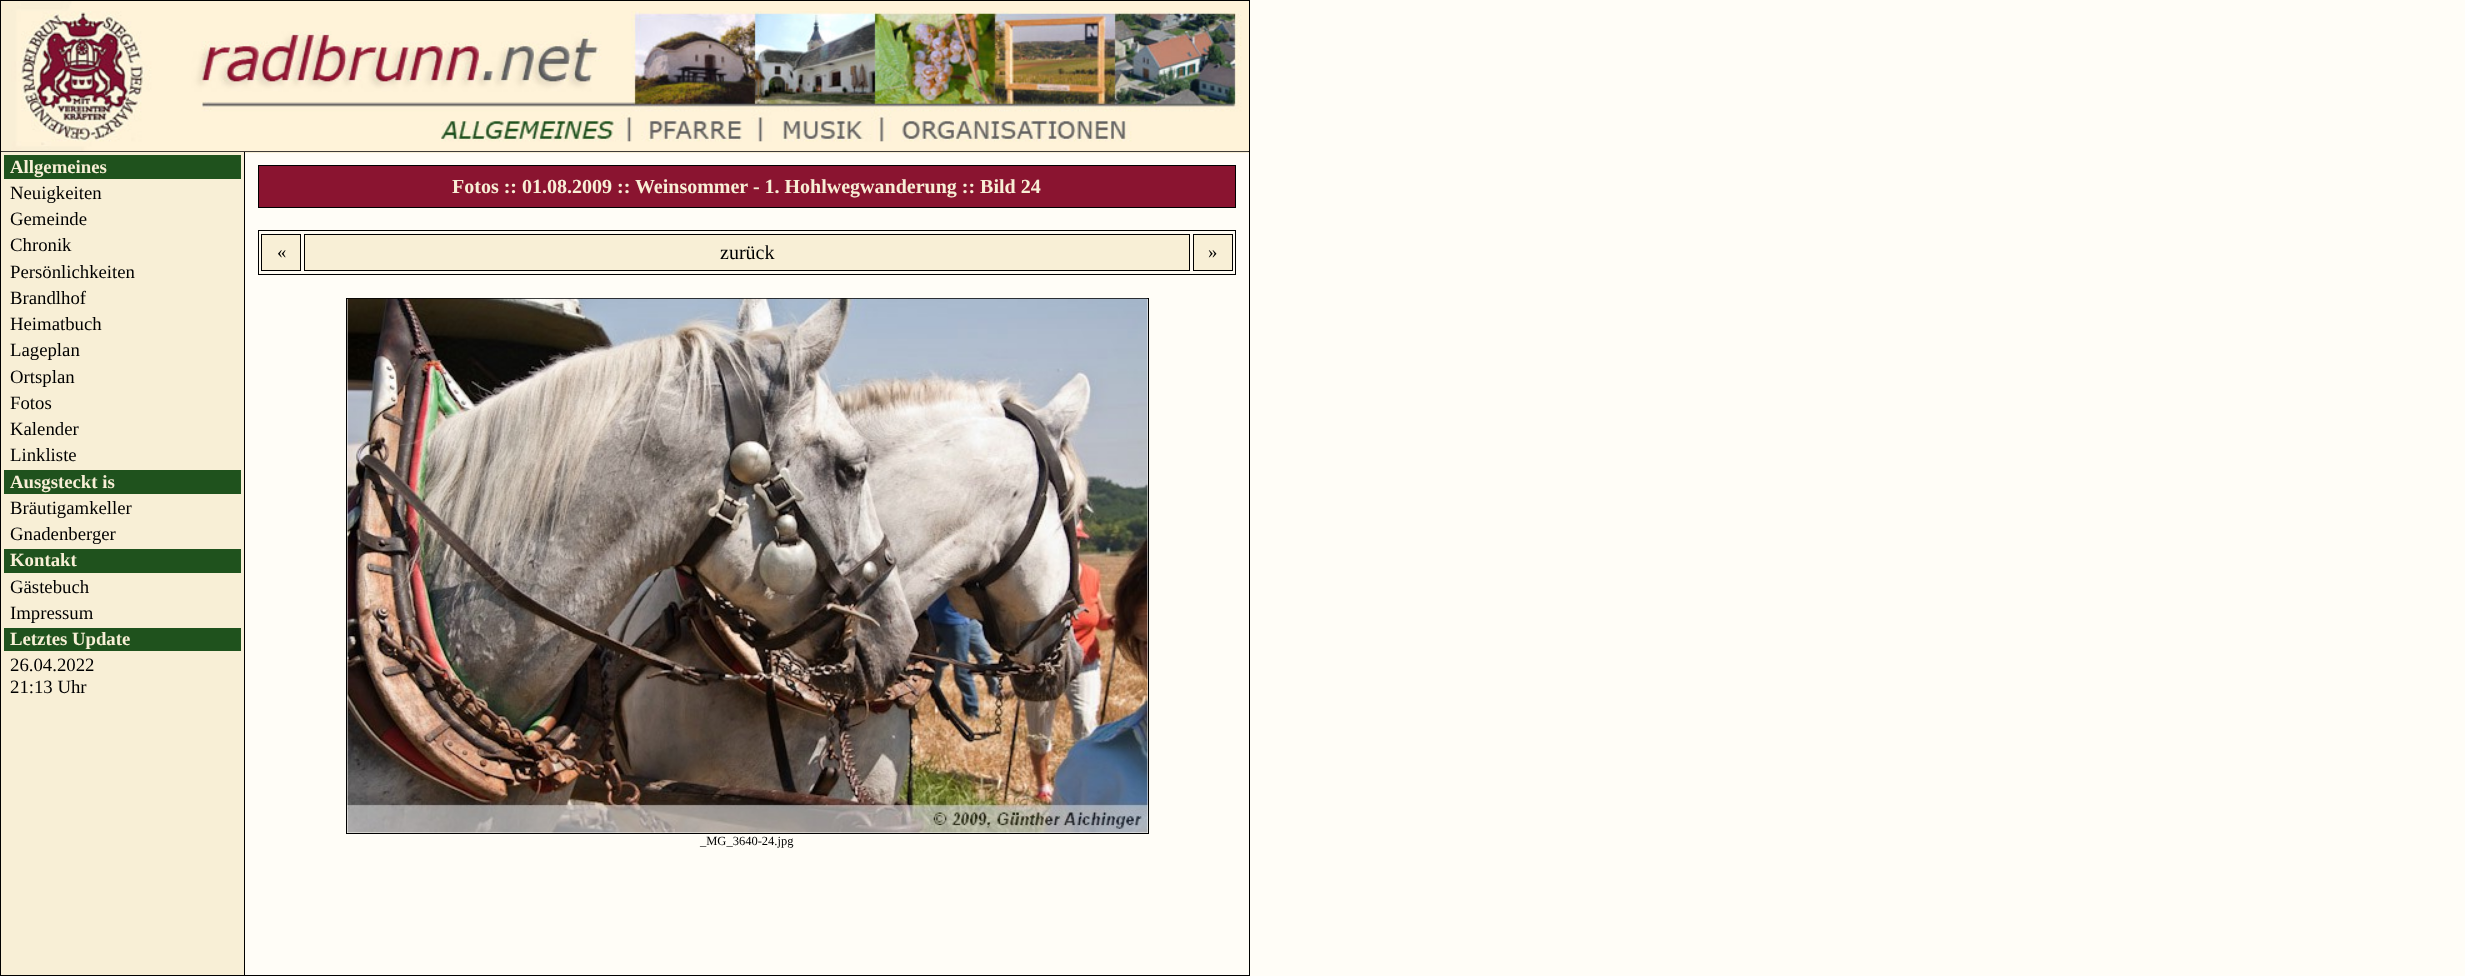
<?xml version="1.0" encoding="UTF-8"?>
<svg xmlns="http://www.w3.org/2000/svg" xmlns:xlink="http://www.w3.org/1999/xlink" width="2465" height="976">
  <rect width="100%" height="100%" fill="#fffdf7" />
  <rect width="1250" height="1" fill="#000000" />
  <rect x="1249" width="1" height="976" fill="#000000" />
  <rect y="975" width="1250" height="1" fill="#000000" />
  <rect width="1" height="976" fill="#000000" />
  <rect x="1" y="1" width="1248" height="152" fill="#f8efd6" />
  <rect x="244" y="151" width="1006" height="1" fill="#000000" />
  <rect x="244" y="151" width="1" height="825" fill="#000000" />
  <rect y="151" width="245" height="1" fill="#000000" />
  <image x="1" y="1" width="1248" height="151" xlink:href="image1.png" />
  <rect x="1" y="153" width="243" height="822" fill="#f8efd6" />
  <rect x="4" y="155" width="237" height="24" fill="#1f521d" />
  <rect x="4" y="470" width="237" height="24" fill="#1f521d" />
  <rect x="4" y="549" width="237" height="24" fill="#1f521d" />
  <rect x="4" y="628" width="237" height="23" fill="#1f521d" />
  <rect x="258.5" y="165.5" width="977" height="42" fill="#8a1430" stroke="#000000" />
  <rect x="258.5" y="230.5" width="977" height="44" fill="#fffbf2" stroke="#000000" />
  <rect x="261.5" y="234.5" width="39" height="36" fill="#f8efd6" stroke="#000000" />
  <rect x="304.5" y="234.5" width="885" height="36" fill="#f8efd6" stroke="#000000" />
  <rect x="1193.5" y="234.5" width="39" height="36" fill="#f8efd6" stroke="#000000" />
  <rect x="346.5" y="298.5" width="802" height="535" fill="none" stroke="#000000" />
  <image x="347" y="298" width="801" height="535" xlink:href="image2.png" />
  <text x="10" y="173" style="font-family: Liberation Serif; font-size: 18.75px; font-weight: bold; fill: #f8efd6">Allgemeines</text>
  <text x="10" y="199" style="font-family: Liberation Serif; font-size: 18.75px; fill: #000000">Neuigkeiten</text>
  <text x="10" y="225" style="font-family: Liberation Serif; font-size: 18.75px; fill: #000000">Gemeinde</text>
  <text x="10" y="251" style="font-family: Liberation Serif; font-size: 18.75px; fill: #000000">Chronik</text>
  <text x="10" y="278" style="font-family: Liberation Serif; font-size: 18.75px; fill: #000000">Persönlichkeiten</text>
  <text x="10" y="304" style="font-family: Liberation Serif; font-size: 18.75px; fill: #000000">Brandlhof</text>
  <text x="10" y="330" style="font-family: Liberation Serif; font-size: 18.75px; fill: #000000">Heimatbuch</text>
  <text x="10" y="356" style="font-family: Liberation Serif; font-size: 18.75px; fill: #000000">Lageplan</text>
  <text x="10" y="383" style="font-family: Liberation Serif; font-size: 18.75px; fill: #000000">Ortsplan</text>
  <text x="10" y="409" style="font-family: Liberation Serif; font-size: 18.75px; fill: #000000">Fotos</text>
  <text x="10" y="435" style="font-family: Liberation Serif; font-size: 18.75px; fill: #000000">Kalender</text>
  <text x="10" y="461" style="font-family: Liberation Serif; font-size: 18.75px; fill: #000000">Linkliste</text>
  <text x="10" y="488" style="font-family: Liberation Serif; font-size: 18.75px; font-weight: bold; fill: #f8efd6">Ausgsteckt is</text>
  <text x="10" y="514" style="font-family: Liberation Serif; font-size: 18.75px; fill: #000000">Bräutigamkeller</text>
  <text x="10" y="540" style="font-family: Liberation Serif; font-size: 18.75px; fill: #000000">Gnadenberger</text>
  <text x="10" y="566" style="font-family: Liberation Serif; font-size: 18.75px; font-weight: bold; fill: #f8efd6">Kontakt</text>
  <text x="10" y="593" style="font-family: Liberation Serif; font-size: 18.75px; fill: #000000">Gästebuch</text>
  <text x="10" y="619" style="font-family: Liberation Serif; font-size: 18.75px; fill: #000000">Impressum</text>
  <text x="10" y="645" style="font-family: Liberation Serif; font-size: 18.75px; font-weight: bold; fill: #f8efd6">Letztes Update</text>
  <text x="10" y="671" style="font-family: Liberation Serif; font-size: 18.75px; fill: #000000">26.04.2022</text>
  <text x="10" y="693" style="font-family: Liberation Serif; font-size: 18.75px; fill: #000000">21:13 Uhr</text>
  <text x="452" y="193" style="font-family: Liberation Serif; font-size: 20px; font-weight: bold; fill: #f8efd6">Fotos :: 01.08.2009 :: Weinsommer - 1. Hohlwegwanderung :: Bild 24</text>
  <text x="277" y="258" style="font-family: Liberation Serif; font-size: 18.75px; fill: #000000">«</text>
  <text x="720" y="259" style="font-family: Liberation Serif; font-size: 20px; fill: #000000">zurück</text>
  <text x="1208" y="258" style="font-family: Liberation Serif; font-size: 18.75px; fill: #000000">»</text>
  <text x="700" y="845" style="font-family: Liberation Serif; font-size: 12.5px; fill: #000000">_MG_3640-24.jpg</text>
</svg>
